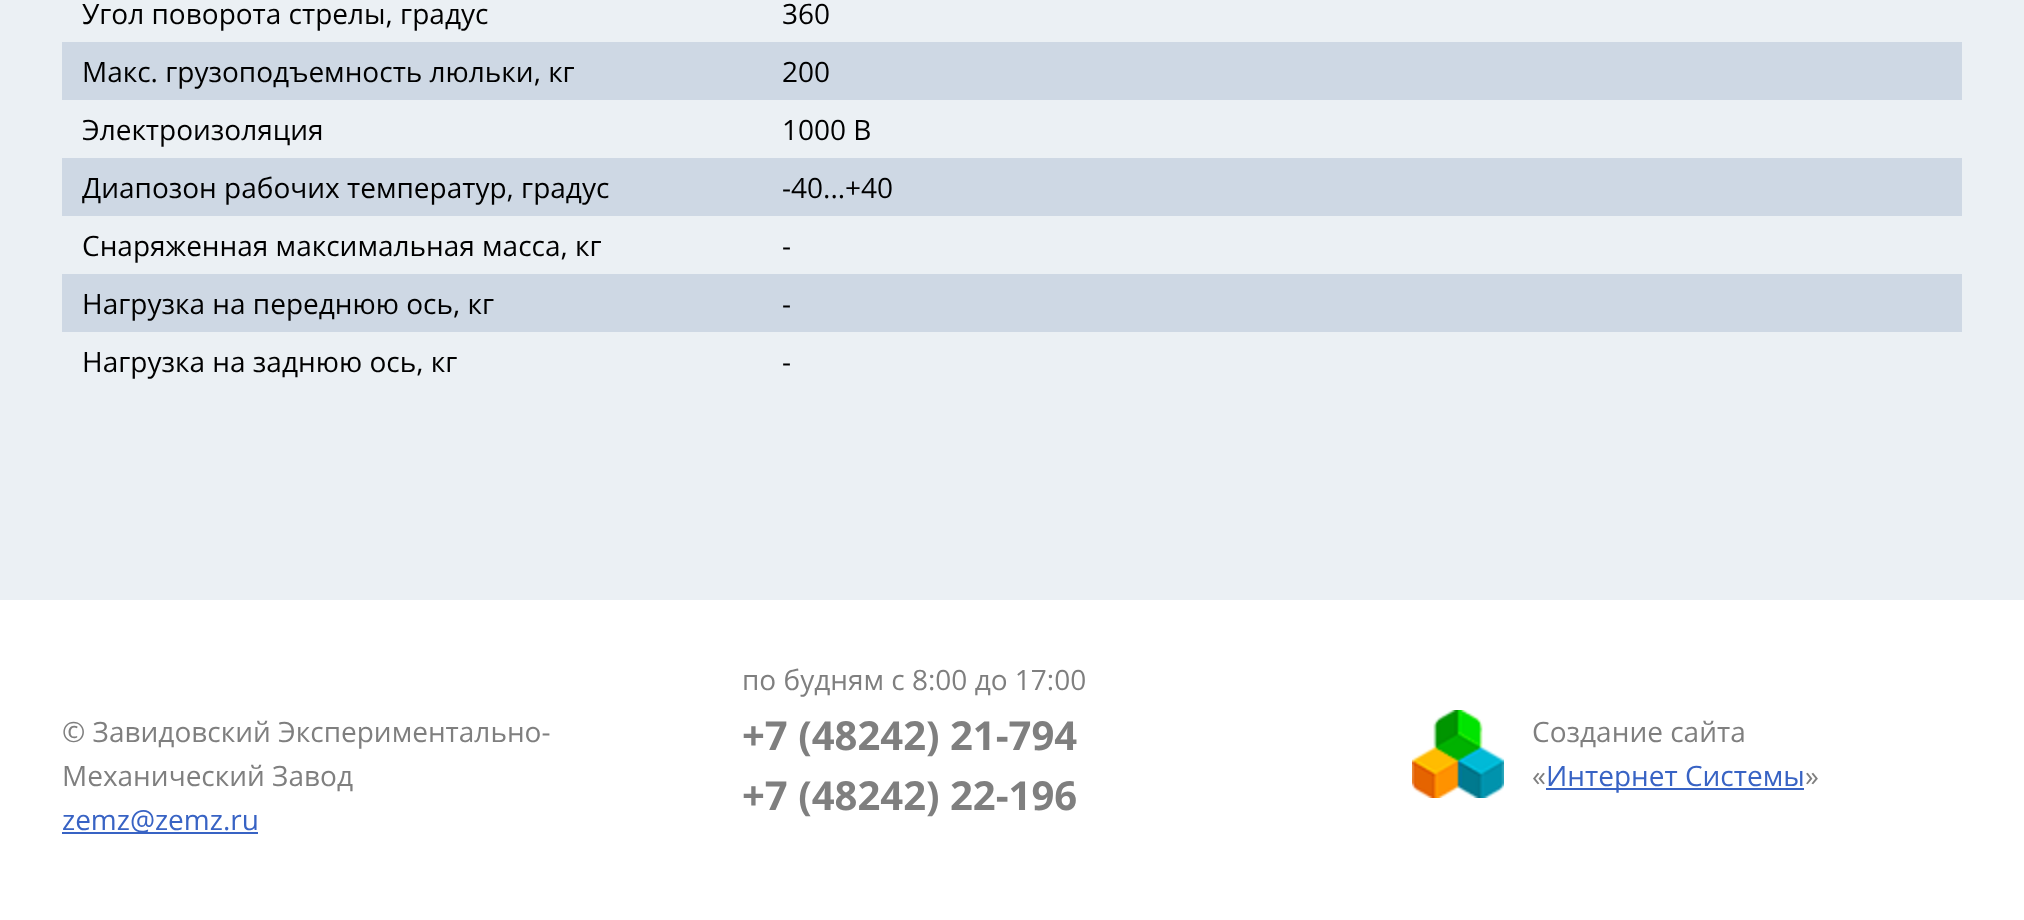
<?xml version="1.0" encoding="UTF-8"?>
<svg xmlns="http://www.w3.org/2000/svg" xmlns:xlink="http://www.w3.org/1999/xlink" width="2024" height="920">
  <rect width="100%" height="100%" fill="#ebf0f4" />
  <rect x="62" y="42" width="1900" height="58" fill="#ced8e4" />
  <rect x="62" y="158" width="1900" height="58" fill="#ced8e4" />
  <rect x="62" y="274" width="1900" height="58" fill="#ced8e4" />
  <rect y="600" width="2024" height="320" fill="#ffffff" />
  <rect x="62" y="832" width="196" height="2" fill="#3863c4" />
  <image x="1412" y="710" width="92" height="88" xlink:href="image1.png" />
  <rect x="1546" y="788" width="258" height="2" fill="#3863c4" />
  <text x="82" y="24" style="font-family: Open Sans; font-size: 28px; fill: #000000">Угол поворота стрелы, градус</text>
  <text x="782" y="24" style="font-family: Open Sans; font-size: 28px; fill: #000000">360</text>
  <text x="82" y="82" style="font-family: Open Sans; font-size: 28px; fill: #000000">Макс. грузоподъемность люльки, кг</text>
  <text x="782" y="82" style="font-family: Open Sans; font-size: 28px; fill: #000000">200</text>
  <text x="82" y="140" style="font-family: Open Sans; font-size: 28px; fill: #000000">Электроизоляция</text>
  <text x="782" y="140" style="font-family: Open Sans; font-size: 28px; fill: #000000">1000 В</text>
  <text x="82" y="198" style="font-family: Open Sans; font-size: 28px; fill: #000000">Диапозон рабочих температур, градус</text>
  <text x="782" y="198" style="font-family: Open Sans; font-size: 28px; fill: #000000">-40...+40</text>
  <text x="82" y="256" style="font-family: Open Sans; font-size: 28px; fill: #000000">Снаряженная максимальная масса, кг</text>
  <text x="782" y="256" style="font-family: Open Sans; font-size: 28px; fill: #000000">-</text>
  <text x="82" y="314" style="font-family: Open Sans; font-size: 28px; fill: #000000">Нагрузка на переднюю ось, кг</text>
  <text x="782" y="314" style="font-family: Open Sans; font-size: 28px; fill: #000000">-</text>
  <text x="82" y="372" style="font-family: Open Sans; font-size: 28px; fill: #000000">Нагрузка на заднюю ось, кг</text>
  <text x="782" y="372" style="font-family: Open Sans; font-size: 28px; fill: #000000">-</text>
  <text x="62" y="742" style="font-family: Open Sans; font-size: 28px; fill: #7f7f7f">© Завидовский Экспериментально-</text>
  <text x="62" y="786" style="font-family: Open Sans; font-size: 28px; fill: #7f7f7f">Механический Завод</text>
  <text x="62" y="830" style="font-family: Open Sans; font-size: 28px; fill: #3863c4">zemz@zemz.ru</text>
  <text x="742" y="690" style="font-family: Open Sans; font-size: 28px; fill: #7f7f7f">по будням с 8:00 до 17:00</text>
  <text x="742" y="750" style="font-family: Open Sans; font-size: 40px; font-weight: bold; fill: #7f7f7f">+7 (48242) 21-794</text>
  <text x="742" y="810" style="font-family: Open Sans; font-size: 40px; font-weight: bold; fill: #7f7f7f">+7 (48242) 22-196</text>
  <text x="1532" y="742" style="font-family: Open Sans; font-size: 28px; fill: #7f7f7f">Создание сайта</text>
  <text x="1532" y="786" style="font-family: Open Sans; font-size: 28px; fill: #7f7f7f">«</text>
  <text x="1546" y="786" style="font-family: Open Sans; font-size: 28px; fill: #3863c4">Интернет Системы</text>
  <text x="1805" y="786" style="font-family: Open Sans; font-size: 28px; fill: #7f7f7f">»</text>
</svg>
